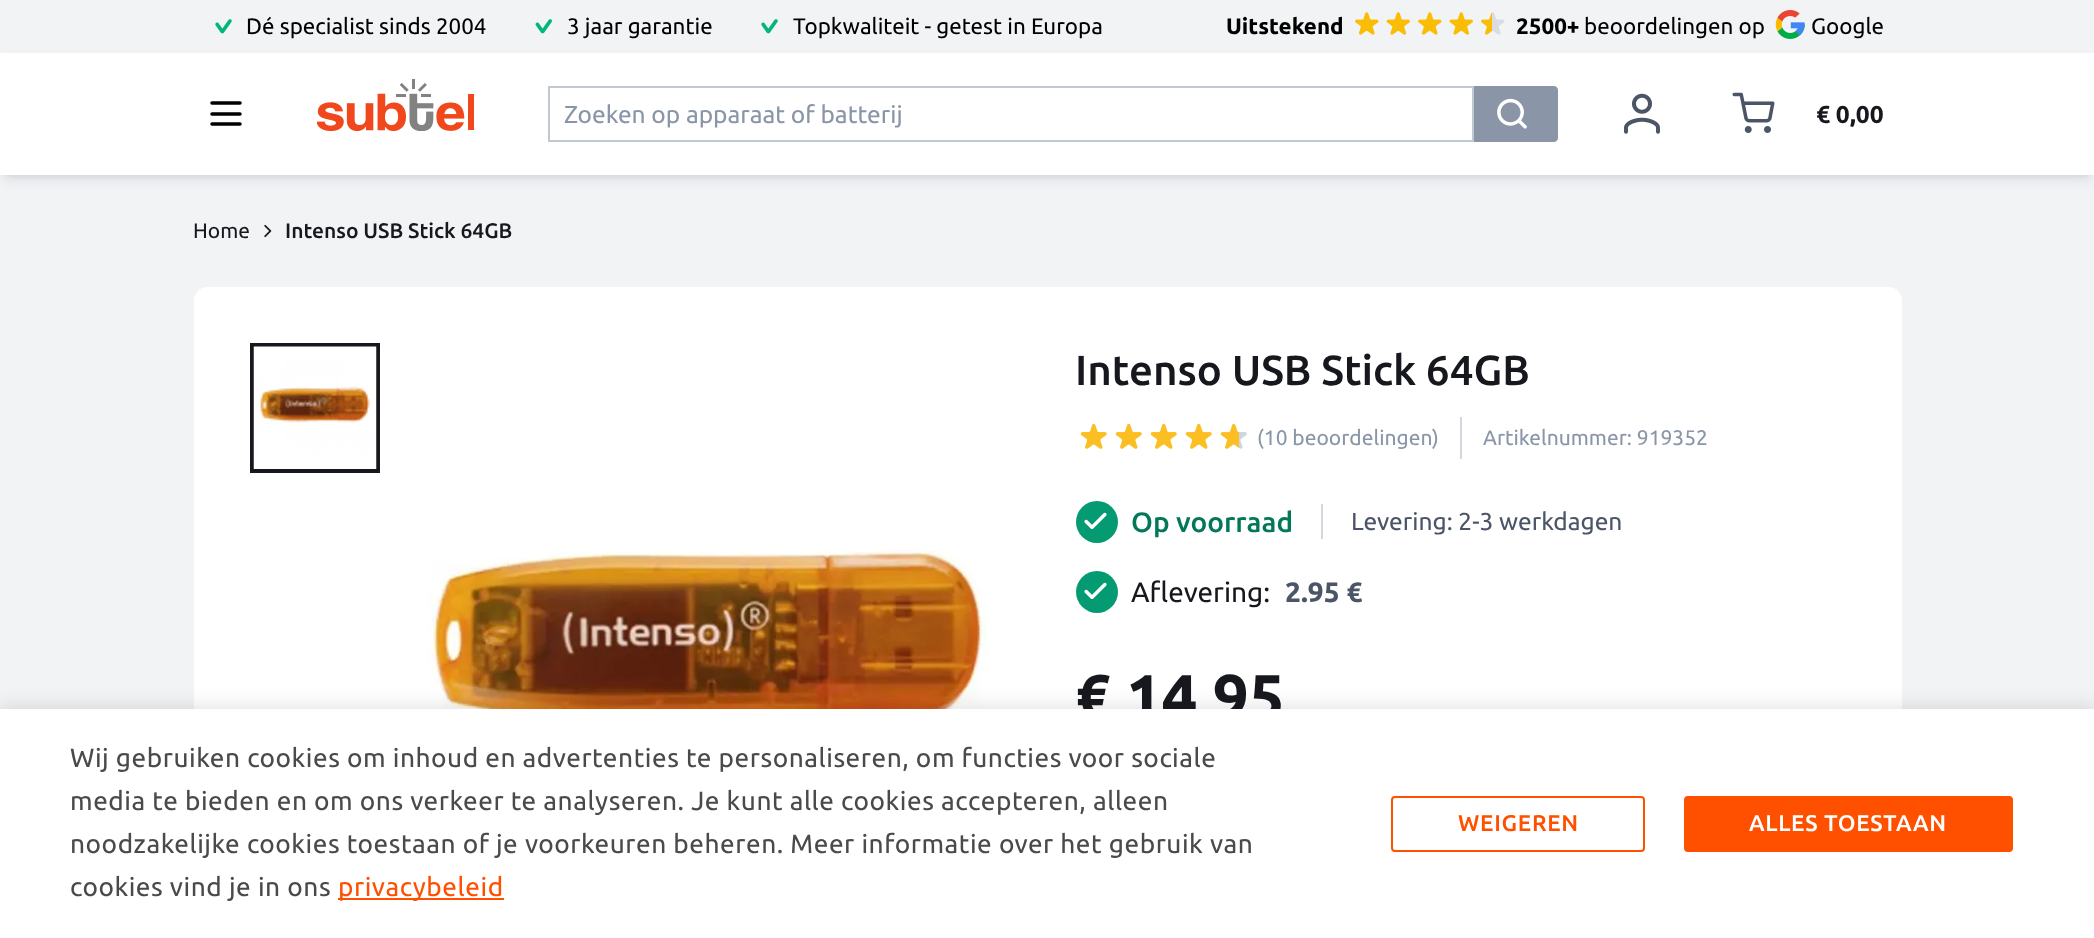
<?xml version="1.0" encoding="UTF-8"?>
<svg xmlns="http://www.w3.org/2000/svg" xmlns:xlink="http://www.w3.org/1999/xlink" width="2094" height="938">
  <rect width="100%" height="100%" fill="#f1f3f5" />
  <image x="215" y="19" width="17" height="15" xlink:href="image1.png" />
  <image x="535" y="19" width="17" height="15" xlink:href="image2.png" />
  <image x="761" y="19" width="17" height="15" xlink:href="image1.png" />
  <image x="1355" y="12" width="24" height="23" xlink:href="image3.png" />
  <image x="1386" y="12" width="24" height="23" xlink:href="image4.png" />
  <image x="1418" y="12" width="24" height="23" xlink:href="image3.png" />
  <image x="1449" y="12" width="24" height="23" xlink:href="image4.png" />
  <image x="1481" y="12" width="24" height="23" xlink:href="image5.png" />
  <image x="1775" y="10" width="30" height="29" xlink:href="image6.png" />
  <rect x="4" y="63" width="2087" height="116" fill="#101828" fill-opacity="0.1" filter="blur(7px)" />
  <rect x="4" y="60" width="2087" height="115" fill="#101828" fill-opacity="0.06" filter="blur(3.5px)" />
  <rect y="53" width="2094" height="122" fill="#ffffff" />
  <path d="M 212 103 h 28 m -28 11 h 28 m -28 10 h 28" fill="none" stroke="#000000" stroke-width="3.5" stroke-linecap="round" stroke-linejoin="round" />
  <image x="317" y="79" width="157" height="52" xlink:href="image7.png" />
  <rect x="549" y="87" width="924" height="54" fill="none" stroke="#c1c8d2" stroke-width="2" />
  <path d="M 1474 86 h 80 c 2 0 4 2 4 4 v 48 c 0 2 -2 4 -4 4 h -80 z" fill="#8a96a8" />
  <image x="1497" y="98" width="30" height="31" xlink:href="image8.png" />
  <image x="1624" y="93" width="36" height="41" xlink:href="image9.png" />
  <image x="1732" y="92" width="43" height="41" xlink:href="image10.png" />
  <image x="264" y="224" width="8" height="14" xlink:href="image11.png" />
  <rect x="194" y="287" width="1708" height="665" rx="14" fill="#ffffff" />
  <rect x="252" y="345" width="126" height="126" fill="none" stroke="#16181d" stroke-width="4" />
  <image x="253" y="346" width="124" height="123" xlink:href="image12.png" />
  <image x="428" y="550" width="559" height="159" xlink:href="image13.png" />
  <image x="1080" y="423" width="27" height="26" xlink:href="image14.png" />
  <image x="1115" y="423" width="27" height="26" xlink:href="image14.png" />
  <image x="1150" y="423" width="27" height="26" xlink:href="image14.png" />
  <image x="1185" y="423" width="27" height="26" xlink:href="image14.png" />
  <image x="1220" y="423" width="27" height="26" xlink:href="image15.png" />
  <rect x="1460" y="417" width="2" height="42" fill="#d3d7df" />
  <circle cx="1097" cy="522" r="21" fill="#049a72" />
  <image x="1084" y="512" width="23" height="17" xlink:href="image16.png" />
  <rect x="1321" y="504" width="2" height="35" fill="#d3d7df" />
  <circle cx="1097" cy="592" r="21" fill="#049a72" />
  <image x="1084" y="582" width="23" height="17" xlink:href="image16.png" />
  <rect y="705" width="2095" height="230" fill="#000000" fill-opacity="0.1" filter="blur(9px)" />
  <text x="246" y="34" style="font-family: Ubuntu; font-size: 22.4px; fill: #000000">Dé specialist sinds 2004</text>
  <text x="567" y="34" style="font-family: Ubuntu; font-size: 22.4px; fill: #000000">3 jaar garantie</text>
  <text x="793" y="34" style="font-family: Ubuntu; font-size: 22.4px; fill: #000000">Topkwaliteit - getest in Europa</text>
  <text x="1226" y="34" style="font-family: Ubuntu; font-size: 22.4px; font-weight: bold; fill: #000000">Uitstekend</text>
  <text x="1516" y="34" style="font-family: Ubuntu; font-size: 22.4px; font-weight: bold; fill: #000000">2500+</text>
  <text x="1584" y="34" style="font-family: Ubuntu; font-size: 22.4px; fill: #000000">beoordelingen op</text>
  <text x="1811" y="34" style="font-family: Ubuntu; font-size: 22.4px; fill: #000000">Google</text>
  <text x="564" y="123" style="font-family: Ubuntu; font-size: 24.5px; fill: #8a96a8">Zoeken op apparaat of batterij</text>
  <text x="1816" y="123" style="font-family: Ubuntu; font-size: 24.5px; font-weight: bold; fill: #16181d">€ 0,00</text>
  <text x="193" y="238" style="font-family: Ubuntu; font-size: 21px; fill: #16181d">Home</text>
  <text x="285" y="238" style="font-family: Ubuntu; font-size: 21px; font-weight: 500; fill: #16181d">Intenso USB Stick 64GB</text>
  <text x="1075" y="385" style="font-family: Ubuntu; font-size: 42px; font-weight: 500; fill: #16181d">Intenso USB Stick 64GB</text>
  <text x="1257" y="445" style="font-family: Ubuntu; font-size: 21px; fill: #8a96a8">(10 beoordelingen)</text>
  <text x="1483" y="445" style="font-family: Ubuntu; font-size: 21px; fill: #8a96a8">Artikelnummer: 919352</text>
  <text x="1131" y="532" style="font-family: Ubuntu; font-size: 28px; font-weight: 500; fill: #027859">Op voorraad</text>
  <text x="1351" y="530" style="font-family: Ubuntu; font-size: 24.5px; fill: #4c5567">Levering: 2-3 werkdagen</text>
  <text x="1131" y="602" style="font-family: Ubuntu; font-size: 28px; fill: #16181d">Aflevering:</text>
  <text x="1285" y="602" style="font-family: Ubuntu; font-size: 28px; font-weight: bold; fill: #4c5567">2.95 €</text>
  <text x="1075" y="719" style="font-family: Ubuntu; font-size: 63px; font-weight: bold; fill: #16181d">€ 14,95</text>
  <rect y="709" width="2094" height="229" fill="#ffffff" />
  <text x="70" y="767" style="font-family: Ubuntu; font-size: 26.25px; letter-spacing: 0.53px; fill: #4a4a4a">Wij gebruiken cookies om inhoud en advertenties te personaliseren, om functies voor sociale</text>
  <text x="70" y="810" style="font-family: Ubuntu; font-size: 26.25px; letter-spacing: 0.53px; fill: #4a4a4a">media te bieden en om ons verkeer te analyseren. Je kunt alle cookies accepteren, alleen</text>
  <text x="70" y="853" style="font-family: Ubuntu; font-size: 26.25px; letter-spacing: 0.53px; fill: #4a4a4a">noodzakelijke cookies toestaan of je voorkeuren beheren. Meer informatie over het gebruik van</text>
  <text x="70" y="896" style="font-family: Ubuntu; font-size: 26.25px; letter-spacing: 0.53px; fill: #4a4a4a">cookies vind je in ons</text>
  <rect x="338" y="898" width="166" height="2" fill="#ff5000" />
  <text x="338" y="896" style="font-family: Ubuntu; font-size: 26.25px; letter-spacing: 0.53px; fill: #ff5000">privacybeleid</text>
  <rect x="1392" y="797" width="252" height="54" rx="3" fill="none" stroke="#ff5000" stroke-width="2" />
  <text x="1458" y="831" style="font-family: Ubuntu; font-size: 22.75px; font-weight: 500; letter-spacing: 0.75px; fill: #ff5000">WEIGEREN</text>
  <rect x="1685" y="797" width="327" height="54" rx="3" fill="#ff5000" stroke="#ff5000" stroke-width="2" />
  <text x="1749" y="831" style="font-family: Ubuntu; font-size: 22.75px; font-weight: 500; letter-spacing: 0.75px; fill: #ffffff">ALLES TOESTAAN</text>
</svg>
